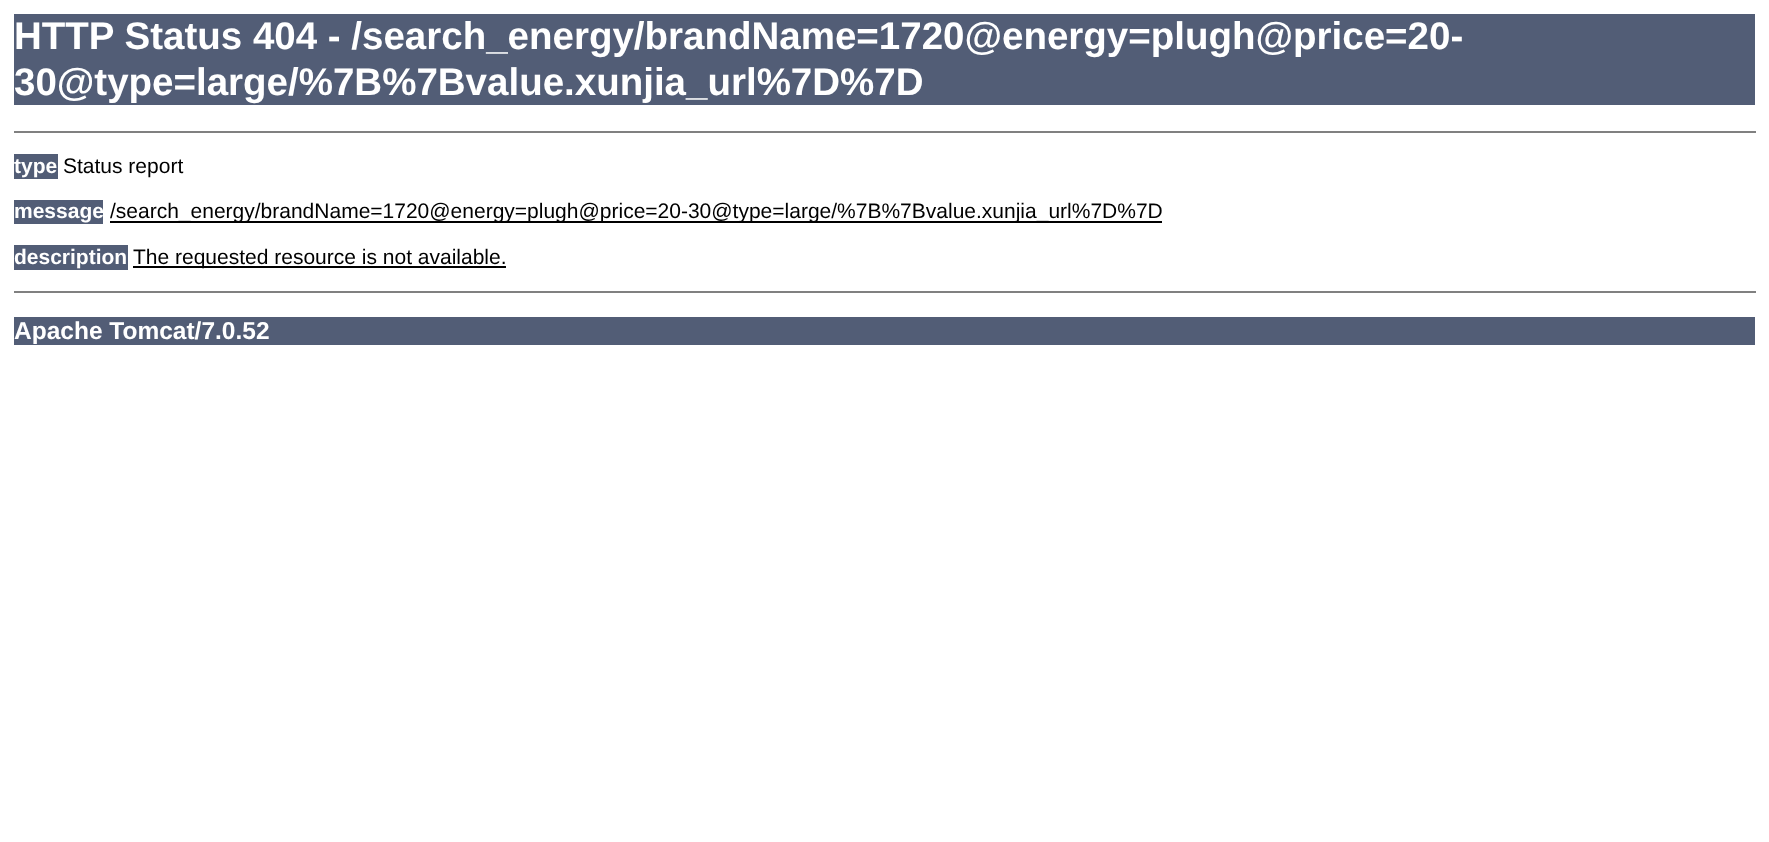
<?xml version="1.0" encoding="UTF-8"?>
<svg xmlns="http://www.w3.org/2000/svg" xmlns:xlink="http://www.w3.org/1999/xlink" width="1769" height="842">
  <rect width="100%" height="100%" fill="#ffffff" />
  <rect x="14" y="14" width="1741" height="91" fill="#525d76" />
  <rect x="14" y="131" width="1742" height="2" fill="#808080" />
  <rect x="14" y="154" width="44" height="25" fill="#525d76" />
  <rect x="14" y="200" width="89" height="24" fill="#525d76" />
  <rect x="110" y="221" width="1052" height="2" fill="#000000" />
  <rect x="14" y="245" width="114" height="25" fill="#525d76" />
  <rect x="133" y="266" width="373" height="2" fill="#000000" />
  <rect x="14" y="291" width="1742" height="2" fill="#808080" />
  <rect x="14" y="317" width="1741" height="28" fill="#525d76" />
  <text x="14" y="49" style="font-family: Liberation Sans; font-size: 38.5px; font-weight: bold; fill: #ffffff">HTTP Status 404 - /search_energy/brandName=1720@energy=plugh@price=20-</text>
  <text x="14" y="95" style="font-family: Liberation Sans; font-size: 38.5px; font-weight: bold; fill: #ffffff">30@type=large/%7B%7Bvalue.xunjia_url%7D%7D</text>
  <text x="14" y="173" style="font-family: Liberation Sans; font-size: 21px; font-weight: bold; fill: #ffffff">type</text>
  <text x="63" y="173" style="font-family: Liberation Sans; font-size: 21px; fill: #000000">Status report</text>
  <text x="14" y="218" style="font-family: Liberation Sans; font-size: 21px; font-weight: bold; fill: #ffffff">message</text>
  <text x="110" y="218" style="font-family: Liberation Sans; font-size: 21px; fill: #000000">/search_energy/brandName=1720@energy=plugh@price=20-30@type=large/%7B%7Bvalue.xunjia_url%7D%7D</text>
  <text x="14" y="264" style="font-family: Liberation Sans; font-size: 21px; font-weight: bold; fill: #ffffff">description</text>
  <text x="133" y="264" style="font-family: Liberation Sans; font-size: 21px; fill: #000000">The requested resource is not available.</text>
  <text x="14" y="339" style="font-family: Liberation Sans; font-size: 24.5px; font-weight: bold; fill: #ffffff">Apache Tomcat/7.0.52</text>
</svg>
